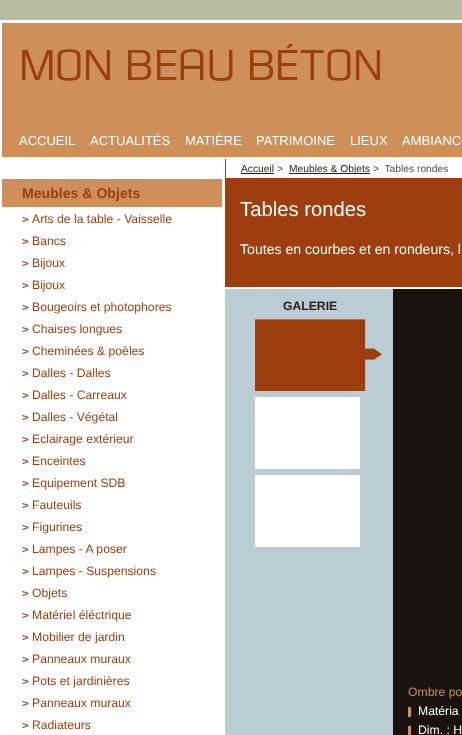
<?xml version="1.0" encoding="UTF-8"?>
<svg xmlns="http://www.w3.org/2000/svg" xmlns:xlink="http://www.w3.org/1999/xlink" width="462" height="735">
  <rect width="100%" height="100%" fill="#b8bca0" />
  <rect y="20" width="462" height="715" fill="#ffffff" />
  <rect x="2" y="23" width="460" height="134" fill="#ce9058" />
  <image x="22" y="44" width="358" height="37" xlink:href="image1.png" />
  <rect x="2" y="179" width="220" height="28" fill="#ce9058" />
  <image x="22" y="217" width="7" height="5" xlink:href="image2.png" />
  <image x="22" y="239" width="7" height="5" xlink:href="image2.png" />
  <image x="22" y="261" width="7" height="5" xlink:href="image2.png" />
  <image x="22" y="283" width="7" height="5" xlink:href="image2.png" />
  <image x="22" y="305" width="7" height="5" xlink:href="image2.png" />
  <image x="22" y="327" width="7" height="5" xlink:href="image2.png" />
  <image x="22" y="349" width="7" height="5" xlink:href="image2.png" />
  <image x="22" y="371" width="7" height="5" xlink:href="image2.png" />
  <image x="22" y="393" width="7" height="5" xlink:href="image2.png" />
  <image x="22" y="415" width="7" height="5" xlink:href="image2.png" />
  <image x="22" y="437" width="7" height="5" xlink:href="image2.png" />
  <image x="22" y="459" width="7" height="5" xlink:href="image2.png" />
  <image x="22" y="481" width="7" height="5" xlink:href="image2.png" />
  <image x="22" y="503" width="7" height="5" xlink:href="image2.png" />
  <image x="22" y="525" width="7" height="5" xlink:href="image2.png" />
  <image x="22" y="547" width="7" height="5" xlink:href="image2.png" />
  <image x="22" y="569" width="7" height="5" xlink:href="image2.png" />
  <image x="22" y="591" width="7" height="5" xlink:href="image2.png" />
  <image x="22" y="613" width="7" height="5" xlink:href="image2.png" />
  <image x="22" y="635" width="7" height="5" xlink:href="image2.png" />
  <image x="22" y="657" width="7" height="5" xlink:href="image2.png" />
  <image x="22" y="679" width="7" height="5" xlink:href="image2.png" />
  <image x="22" y="701" width="7" height="5" xlink:href="image2.png" />
  <image x="22" y="723" width="7" height="5" xlink:href="image2.png" />
  <rect x="225" y="159" width="1" height="19" fill="#9e3d0d" />
  <rect x="241" y="173" width="33" height="1" fill="#2c1d16" />
  <rect x="289" y="173" width="81" height="1" fill="#2c1d16" />
  <rect x="225" y="178" width="237" height="109" fill="#9e3d0d" />
  <rect x="225" y="289" width="168" height="446" fill="#bbccd5" />
  <image x="255" y="319" width="127" height="72" xlink:href="image3.png" />
  <rect x="255" y="397" width="105" height="72" fill="#ffffff" />
  <rect x="255" y="475" width="105" height="72" fill="#ffffff" />
  <rect x="393" y="289" width="69" height="446" fill="#1a120e" />
  <rect x="408" y="707" width="3" height="10" fill="#ce9058" />
  <rect x="408" y="726" width="3" height="9" fill="#ce9058" />
  <text x="19" y="145" style="font-family: Liberation Sans; font-size: 13px; fill: #ffffff">ACCUEIL</text>
  <text x="90" y="145" style="font-family: Liberation Sans; font-size: 13px; fill: #ffffff">ACTUALITÉS</text>
  <text x="185" y="145" style="font-family: Liberation Sans; font-size: 13px; fill: #ffffff">MATIÈRE</text>
  <text x="256" y="145" style="font-family: Liberation Sans; font-size: 13px; fill: #ffffff">PATRIMOINE</text>
  <text x="350" y="145" style="font-family: Liberation Sans; font-size: 13px; fill: #ffffff">LIEUX</text>
  <text x="402" y="145" style="font-family: Liberation Sans; font-size: 13px; fill: #ffffff">AMBIANC</text>
  <text x="22" y="198" style="font-family: Liberation Sans; font-size: 14.1px; font-weight: bold; fill: #9e3d0d">Meubles &amp; Objets</text>
  <text x="32" y="223" style="font-family: Liberation Sans; font-size: 12.2px; fill: #9e3d0d">Arts de la table - Vaisselle</text>
  <text x="32" y="245" style="font-family: Liberation Sans; font-size: 12.2px; fill: #9e3d0d">Bancs</text>
  <text x="32" y="267" style="font-family: Liberation Sans; font-size: 12.2px; fill: #9e3d0d">Bijoux</text>
  <text x="32" y="289" style="font-family: Liberation Sans; font-size: 12.2px; fill: #9e3d0d">Bijoux</text>
  <text x="32" y="311" style="font-family: Liberation Sans; font-size: 12.2px; fill: #9e3d0d">Bougeoirs et photophores</text>
  <text x="32" y="333" style="font-family: Liberation Sans; font-size: 12.2px; fill: #9e3d0d">Chaises longues</text>
  <text x="32" y="355" style="font-family: Liberation Sans; font-size: 12.2px; fill: #9e3d0d">Cheminées &amp; poêles</text>
  <text x="32" y="377" style="font-family: Liberation Sans; font-size: 12.2px; fill: #9e3d0d">Dalles - Dalles</text>
  <text x="32" y="399" style="font-family: Liberation Sans; font-size: 12.2px; fill: #9e3d0d">Dalles - Carreaux</text>
  <text x="32" y="421" style="font-family: Liberation Sans; font-size: 12.2px; fill: #9e3d0d">Dalles - Végétal</text>
  <text x="32" y="443" style="font-family: Liberation Sans; font-size: 12.2px; fill: #9e3d0d">Eclairage extérieur</text>
  <text x="32" y="465" style="font-family: Liberation Sans; font-size: 12.2px; fill: #9e3d0d">Enceintes</text>
  <text x="32" y="487" style="font-family: Liberation Sans; font-size: 12.2px; fill: #9e3d0d">Equipement SDB</text>
  <text x="32" y="509" style="font-family: Liberation Sans; font-size: 12.2px; fill: #9e3d0d">Fauteuils</text>
  <text x="32" y="531" style="font-family: Liberation Sans; font-size: 12.2px; fill: #9e3d0d">Figurines</text>
  <text x="32" y="553" style="font-family: Liberation Sans; font-size: 12.2px; fill: #9e3d0d">Lampes - A poser</text>
  <text x="32" y="575" style="font-family: Liberation Sans; font-size: 12.2px; fill: #9e3d0d">Lampes - Suspensions</text>
  <text x="32" y="597" style="font-family: Liberation Sans; font-size: 12.2px; fill: #9e3d0d">Objets</text>
  <text x="32" y="619" style="font-family: Liberation Sans; font-size: 12.2px; fill: #9e3d0d">Matériel éléctrique</text>
  <text x="32" y="641" style="font-family: Liberation Sans; font-size: 12.2px; fill: #9e3d0d">Mobilier de jardin</text>
  <text x="32" y="663" style="font-family: Liberation Sans; font-size: 12.2px; fill: #9e3d0d">Panneaux muraux</text>
  <text x="32" y="685" style="font-family: Liberation Sans; font-size: 12.2px; fill: #9e3d0d">Pots et jardinières</text>
  <text x="32" y="707" style="font-family: Liberation Sans; font-size: 12.2px; fill: #9e3d0d">Panneaux muraux</text>
  <text x="32" y="729" style="font-family: Liberation Sans; font-size: 12.2px; fill: #9e3d0d">Radiateurs</text>
  <text x="241" y="172" style="font-family: Liberation Sans; font-size: 10.25px; fill: #2c1d16">Accueil</text>
  <text x="277" y="172" style="font-family: Liberation Sans; font-size: 10.25px; fill: #4f4f4f">&gt;</text>
  <text x="289" y="172" style="font-family: Liberation Sans; font-size: 10.25px; fill: #2c1d16">Meubles &amp; Objets</text>
  <text x="373" y="172" style="font-family: Liberation Sans; font-size: 10.25px; fill: #4f4f4f" xml:space="preserve">&gt;  Tables rondes</text>
  <text x="240" y="216" style="font-family: Liberation Sans; font-size: 20.25px; fill: #ffffff">Tables rondes</text>
  <text x="240" y="254" style="font-family: Liberation Sans; font-size: 14.1px; fill: #ffffff">Toutes en courbes et en rondeurs, l</text>
  <text x="283" y="310" style="font-family: Liberation Sans; font-size: 12.2px; font-weight: bold; fill: #2c1d16">GALERIE</text>
  <text x="408" y="696" style="font-family: Liberation Sans; font-size: 12.2px; fill: #ce9058">Ombre po</text>
  <text x="418" y="715" style="font-family: Liberation Sans; font-size: 12.2px; fill: #ffffff">Matéria</text>
  <text x="418" y="734" style="font-family: Liberation Sans; font-size: 12.2px; fill: #ffffff">Dim. : H</text>
</svg>
